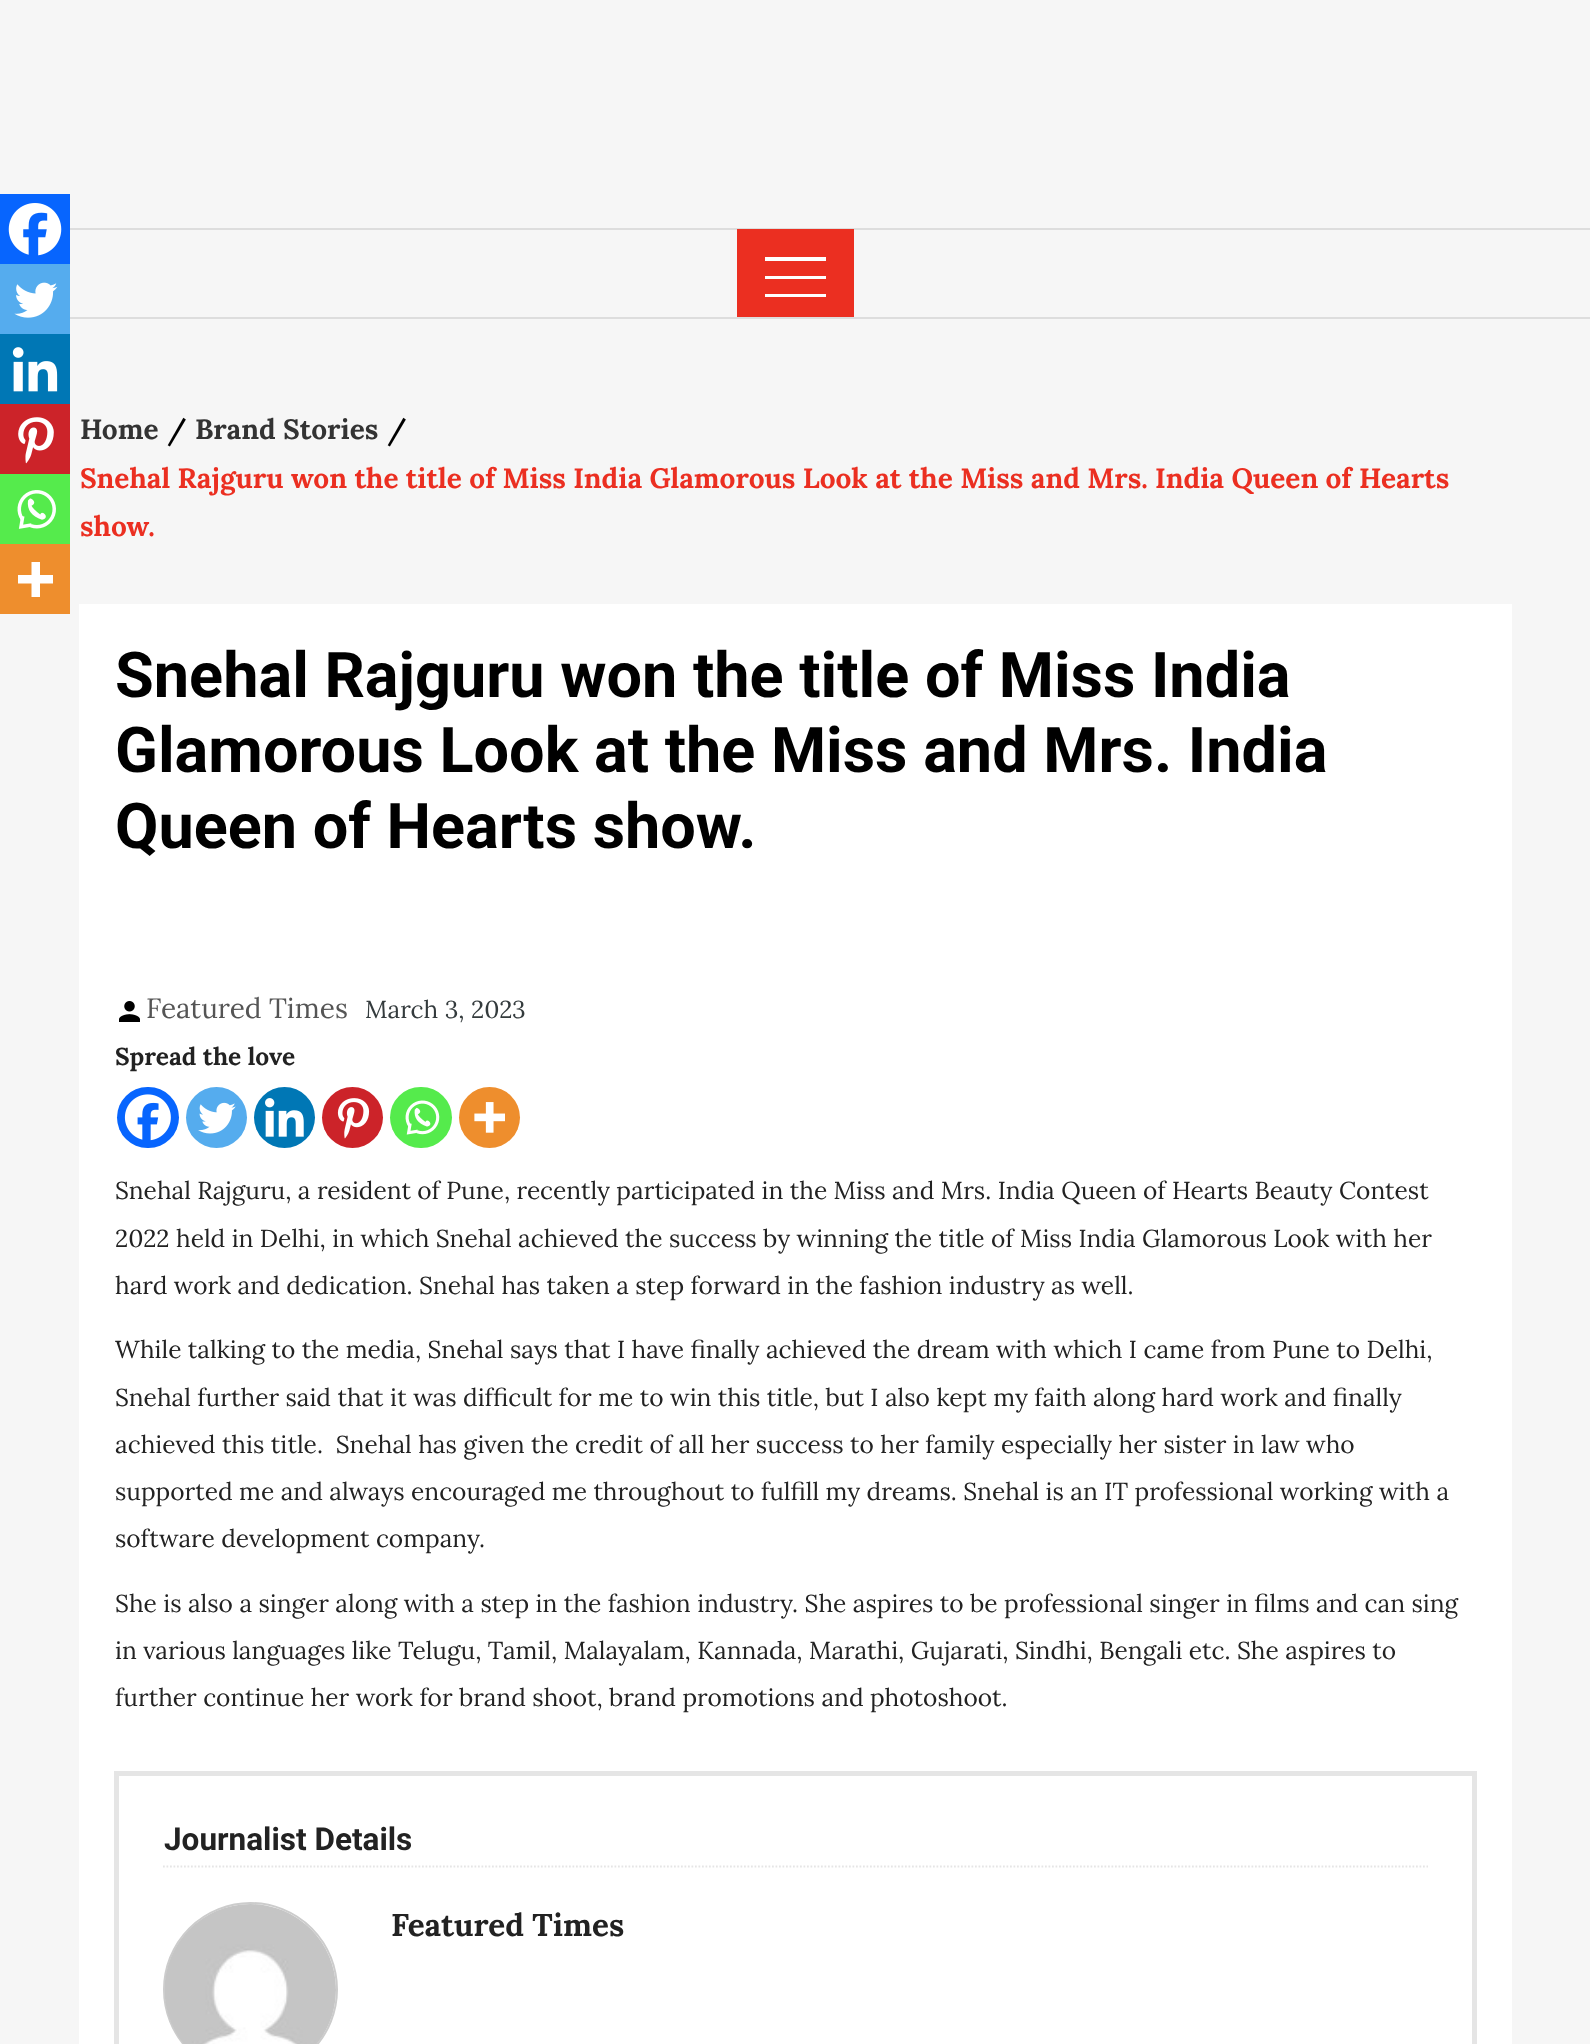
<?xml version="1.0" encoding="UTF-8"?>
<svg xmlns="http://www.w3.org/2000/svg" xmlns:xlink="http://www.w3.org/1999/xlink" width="1590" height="2044">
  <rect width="100%" height="100%" fill="#f6f6f6" />
  <rect x="70" y="228" width="1520" height="2" fill="#dddddd" />
  <rect x="70" y="317" width="1520" height="2" fill="#dddddd" />
  <rect x="737" y="229" width="117" height="88" fill="#eb2f21" />
  <rect x="765" y="257" width="61" height="4" fill="#ffffff" />
  <rect x="765" y="276" width="61" height="3" fill="#ffffff" />
  <rect x="765" y="294" width="61" height="3" fill="#ffffff" />
  <rect x="79" y="604" width="1433" height="1440" fill="#ffffff" />
  <image x="119" y="1001" width="21" height="21" xlink:href="image1.png" />
  <rect y="194" width="70" height="70" fill="#0765fe" />
  <image x="8" y="203" width="54" height="53" xlink:href="image2.png" />
  <rect y="264" width="70" height="70" fill="#55acee" />
  <image x="14" y="282" width="44" height="36" xlink:href="image3.png" />
  <rect y="334" width="70" height="70" fill="#0077b5" />
  <image x="12" y="347" width="46" height="45" xlink:href="image4.png" />
  <rect y="404" width="70" height="70" fill="#cc2329" />
  <image x="18" y="417" width="36" height="47" xlink:href="image5.png" />
  <rect y="474" width="70" height="70" fill="#55eb4c" />
  <image x="17" y="490" width="39" height="39" xlink:href="image6.png" />
  <rect y="544" width="70" height="70" fill="#ee8e2d" />
  <path d="M 40 575 v -13 h -8.5 v 13 h -13.5 v 8.5 h 13.5 v 13.5 h 8.5 v -13.5 h 13 v -8.5 z" fill="#ffffff" fill-rule="evenodd" />
  <rect x="117" y="1087" width="62" height="61" rx="30.5" fill="#0765fe" />
  <image x="124" y="1094" width="47" height="47" xlink:href="image7.png" />
  <circle cx="216.5" cy="1117.5" r="30.5" fill="#55acee" />
  <image x="198" y="1102" width="38" height="32" xlink:href="image8.png" />
  <circle cx="284.5" cy="1117.5" r="30.5" fill="#0077b5" />
  <image x="265" y="1098" width="39" height="39" xlink:href="image9.png" />
  <circle cx="352.5" cy="1117.5" r="30.5" fill="#cc2329" />
  <image x="337" y="1098" width="33" height="41" xlink:href="image10.png" />
  <rect x="390" y="1087" width="62" height="61" rx="30.5" fill="#55eb4c" />
  <image x="405" y="1100" width="35" height="35" xlink:href="image11.png" />
  <circle cx="489.5" cy="1117.5" r="30.5" fill="#ee8e2d" />
  <image x="474" y="1102" width="31" height="31" xlink:href="image12.png" />
  <rect x="116.5" y="1773.5" width="1358" height="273" fill="none" stroke="#e5e5e5" stroke-width="5" />
  <path d="M 163 1866.5 h 1265" fill="none" stroke="#e5e5e5" stroke-width="1.8" stroke-dasharray="1.75 1.75" />
  <circle cx="250.5" cy="1989.5" r="86.5" fill="none" stroke="#cccccc" stroke-width="2" />
  <image x="165" y="1904" width="171" height="140" xlink:href="image13.png" />
  <text x="80" y="439" style="font-family: Lora; font-size: 28px; font-weight: bold; fill: #333333">Home</text>
  <text x="167" y="439" style="font-family: Lora; font-size: 28px; font-weight: bold; fill: #000000">/</text>
  <text x="195" y="439" style="font-family: Lora; font-size: 28px; font-weight: bold; fill: #333333">Brand Stories</text>
  <text x="387" y="439" style="font-family: Lora; font-size: 28px; font-weight: bold; fill: #000000">/</text>
  <text x="80" y="488" style="font-family: Lora; font-size: 28px; font-weight: bold; fill: #eb2f21">Snehal Rajguru won the title of Miss India Glamorous Look at the Miss and Mrs. India Queen of Hearts</text>
  <text x="80" y="536" style="font-family: Lora; font-size: 28px; font-weight: bold; fill: #eb2f21">show.</text>
  <text x="115" y="697" style="font-family: Roboto; font-size: 63px; font-weight: bold; fill: #000000">Snehal Rajguru won the title of Miss India</text>
  <text x="115" y="772" style="font-family: Roboto; font-size: 63px; font-weight: bold; fill: #000000">Glamorous Look at the Miss and Mrs. India</text>
  <text x="115" y="848" style="font-family: Roboto; font-size: 63px; font-weight: bold; fill: #000000">Queen of Hearts show.</text>
  <text x="146" y="1018" style="font-family: Lora; font-size: 28px; fill: #555555">Featured Times</text>
  <text x="365" y="1018" style="font-family: Lora; font-size: 24.5px; fill: #343b3d">March 3, 2023</text>
  <text x="115" y="1065" style="font-family: Lora; font-size: 24.5px; font-weight: bold; fill: #222222">Spread the love</text>
  <text x="115" y="1199" style="font-family: Lora; font-size: 24.5px; fill: #222222">Snehal Rajguru, a resident of Pune, recently participated in the Miss and Mrs. India Queen of Hearts Beauty Contest</text>
  <text x="115" y="1247" style="font-family: Lora; font-size: 24.5px; fill: #222222">2022 held in Delhi, in which Snehal achieved the success by winning the title of Miss India Glamorous Look with her</text>
  <text x="115" y="1294" style="font-family: Lora; font-size: 24.5px; fill: #222222">hard work and dedication. Snehal has taken a step forward in the fashion industry as well.</text>
  <text x="115" y="1358" style="font-family: Lora; font-size: 24.5px; fill: #222222">While talking to the media, Snehal says that I have finally achieved the dream with which I came from Pune to Delhi,</text>
  <text x="115" y="1406" style="font-family: Lora; font-size: 24.5px; fill: #222222">Snehal further said that it was difficult for me to win this title, but I also kept my faith along hard work and finally</text>
  <text x="115" y="1453" style="font-family: Lora; font-size: 24.5px; fill: #222222" xml:space="preserve">achieved this title.  Snehal has given the credit of all her success to her family especially her sister in law who</text>
  <text x="115" y="1500" style="font-family: Lora; font-size: 24.5px; fill: #222222">supported me and always encouraged me throughout to fulfill my dreams. Snehal is an IT professional working with a</text>
  <text x="115" y="1547" style="font-family: Lora; font-size: 24.5px; fill: #222222">software development company.</text>
  <text x="115" y="1612" style="font-family: Lora; font-size: 24.5px; fill: #222222">She is also a singer along with a step in the fashion industry. She aspires to be professional singer in films and can sing</text>
  <text x="115" y="1659" style="font-family: Lora; font-size: 24.5px; fill: #222222">in various languages like Telugu, Tamil, Malayalam, Kannada, Marathi, Gujarati, Sindhi, Bengali etc. She aspires to</text>
  <text x="115" y="1706" style="font-family: Lora; font-size: 24.5px; fill: #222222">further continue her work for brand shoot, brand promotions and photoshoot.</text>
  <text x="164" y="1850" style="font-family: Roboto; font-size: 31.5px; font-weight: bold; fill: #222222">Journalist Details</text>
  <text x="391" y="1936" style="font-family: Lora; font-size: 31.5px; font-weight: bold; fill: #222222">Featured Times</text>
</svg>
